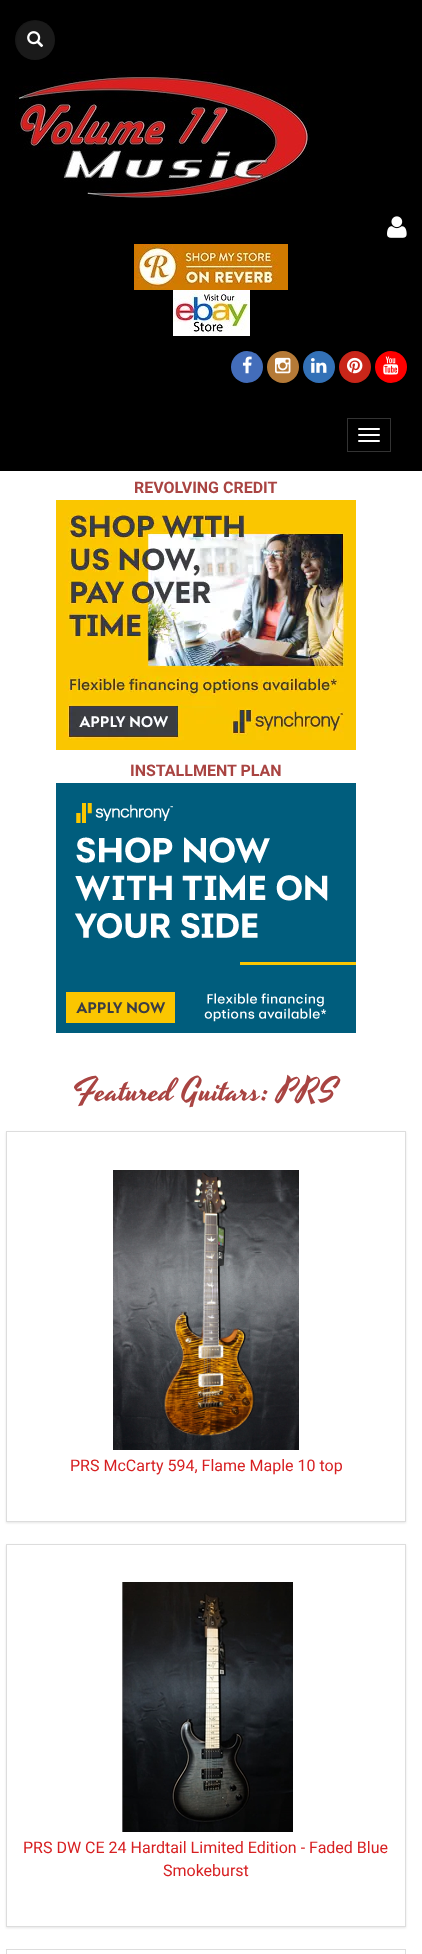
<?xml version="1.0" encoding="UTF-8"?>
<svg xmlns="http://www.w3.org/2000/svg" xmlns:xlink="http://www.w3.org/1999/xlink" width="422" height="1954">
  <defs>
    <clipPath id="clip1"><path d="M 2 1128 h 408 v 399 h -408 z m 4 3 h 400 v 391 h -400 z" clip-rule="evenodd" /></clipPath>
    <clipPath id="clip2"><path d="M 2 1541 h 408 v 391 h -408 z m 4 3 h 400 v 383 h -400 z" clip-rule="evenodd" /></clipPath>
  </defs>
  <rect width="100%" height="100%" fill="#000000" />
  <circle cx="35" cy="40" r="20" fill="#1a1a1a" />
  <path d="M 36 21 c 5 0 8.5 1.5 12 3.5 c -8 -6.5 -20 -6 -27 1.5 c -8 7.5 -8 20.5 0 28 c -9 -11 -4 -33 15 -33 z" fill="#000000" fill-opacity="0.1" />
  <image x="27" y="31" width="17" height="17" xlink:href="image1.png" />
  <image x="15" y="70" width="295" height="128" xlink:href="image2.png" />
  <image x="387" y="216" width="20" height="22" xlink:href="image3.png" />
  <image x="134" y="244" width="154" height="46" xlink:href="image4.png" />
  <image x="173" y="290" width="77" height="46" xlink:href="image5.png" />
  <circle cx="247" cy="367" r="16" fill="#436dba" />
  <image x="242" y="356" width="10" height="18" xlink:href="image6.png" />
  <circle cx="283" cy="367" r="16" fill="#b57a37" />
  <image x="275" y="357" width="16" height="17" xlink:href="image7.png" />
  <circle cx="319" cy="367" r="16" fill="#3371b7" />
  <image x="311" y="358" width="16" height="15" xlink:href="image8.png" />
  <circle cx="355" cy="367" r="16" fill="#c92619" />
  <image x="347" y="357" width="16" height="17" xlink:href="image9.png" />
  <circle cx="391" cy="367" r="16" fill="#ff0000" />
  <image x="383" y="356" width="16" height="19" xlink:href="image10.png" />
  <rect x="347.5" y="418.5" width="43" height="33" fill="none" stroke="#333333" />
  <rect x="358" y="428" width="22" height="2" rx="1" fill="#ffffff" />
  <rect x="358" y="434" width="22" height="2" rx="1" fill="#ffffff" />
  <rect x="358" y="440" width="22" height="2" rx="1" fill="#ffffff" />
  <rect y="471" width="422" height="1483" fill="#ffffff" />
  <image x="56" y="500" width="300" height="250" xlink:href="image11.png" />
  <image x="56" y="783" width="300" height="250" xlink:href="image12.png" />
  <g clip-path="url(#clip1)">
    <rect x="6" y="1132" width="400" height="391" fill="#000000" fill-opacity="0.1" filter="blur(1px)" />
  </g>
  <rect x="6.5" y="1131.5" width="399" height="390" fill="none" stroke="#dddddd" />
  <image x="113" y="1170" width="186" height="280" xlink:href="image13.png" />
  <g clip-path="url(#clip2)">
    <rect x="6" y="1545" width="400" height="383" fill="#000000" fill-opacity="0.1" filter="blur(1px)" />
  </g>
  <rect x="6.5" y="1544.5" width="399" height="382" fill="none" stroke="#dddddd" />
  <image x="122" y="1582" width="171" height="250" xlink:href="image14.png" />
  <rect x="6.5" y="1949.5" width="399" height="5" fill="none" stroke="#dddddd" />
  <text x="134" y="493" style="font-family: Roboto; font-size: 16px; font-weight: bold; fill: #a94442">REVOLVING CREDIT</text>
  <text x="130" y="776" style="font-family: Roboto; font-size: 16px; font-weight: bold; fill: #a94442">INSTALLMENT PLAN</text>
  <text x="73" y="1100" style="font-family: Yesteryear; font-size: 32px; fill: #a94442">Featured Guitars: PRS</text>
  <text x="70" y="1471" style="font-family: Roboto; font-size: 16px; fill: #d72022">PRS McCarty 594, Flame Maple 10 top</text>
  <text x="23" y="1853" style="font-family: Roboto; font-size: 16px; fill: #d72022">PRS DW CE 24 Hardtail Limited Edition - Faded Blue</text>
  <text x="163" y="1876" style="font-family: Roboto; font-size: 16px; fill: #d72022">Smokeburst</text>
</svg>
